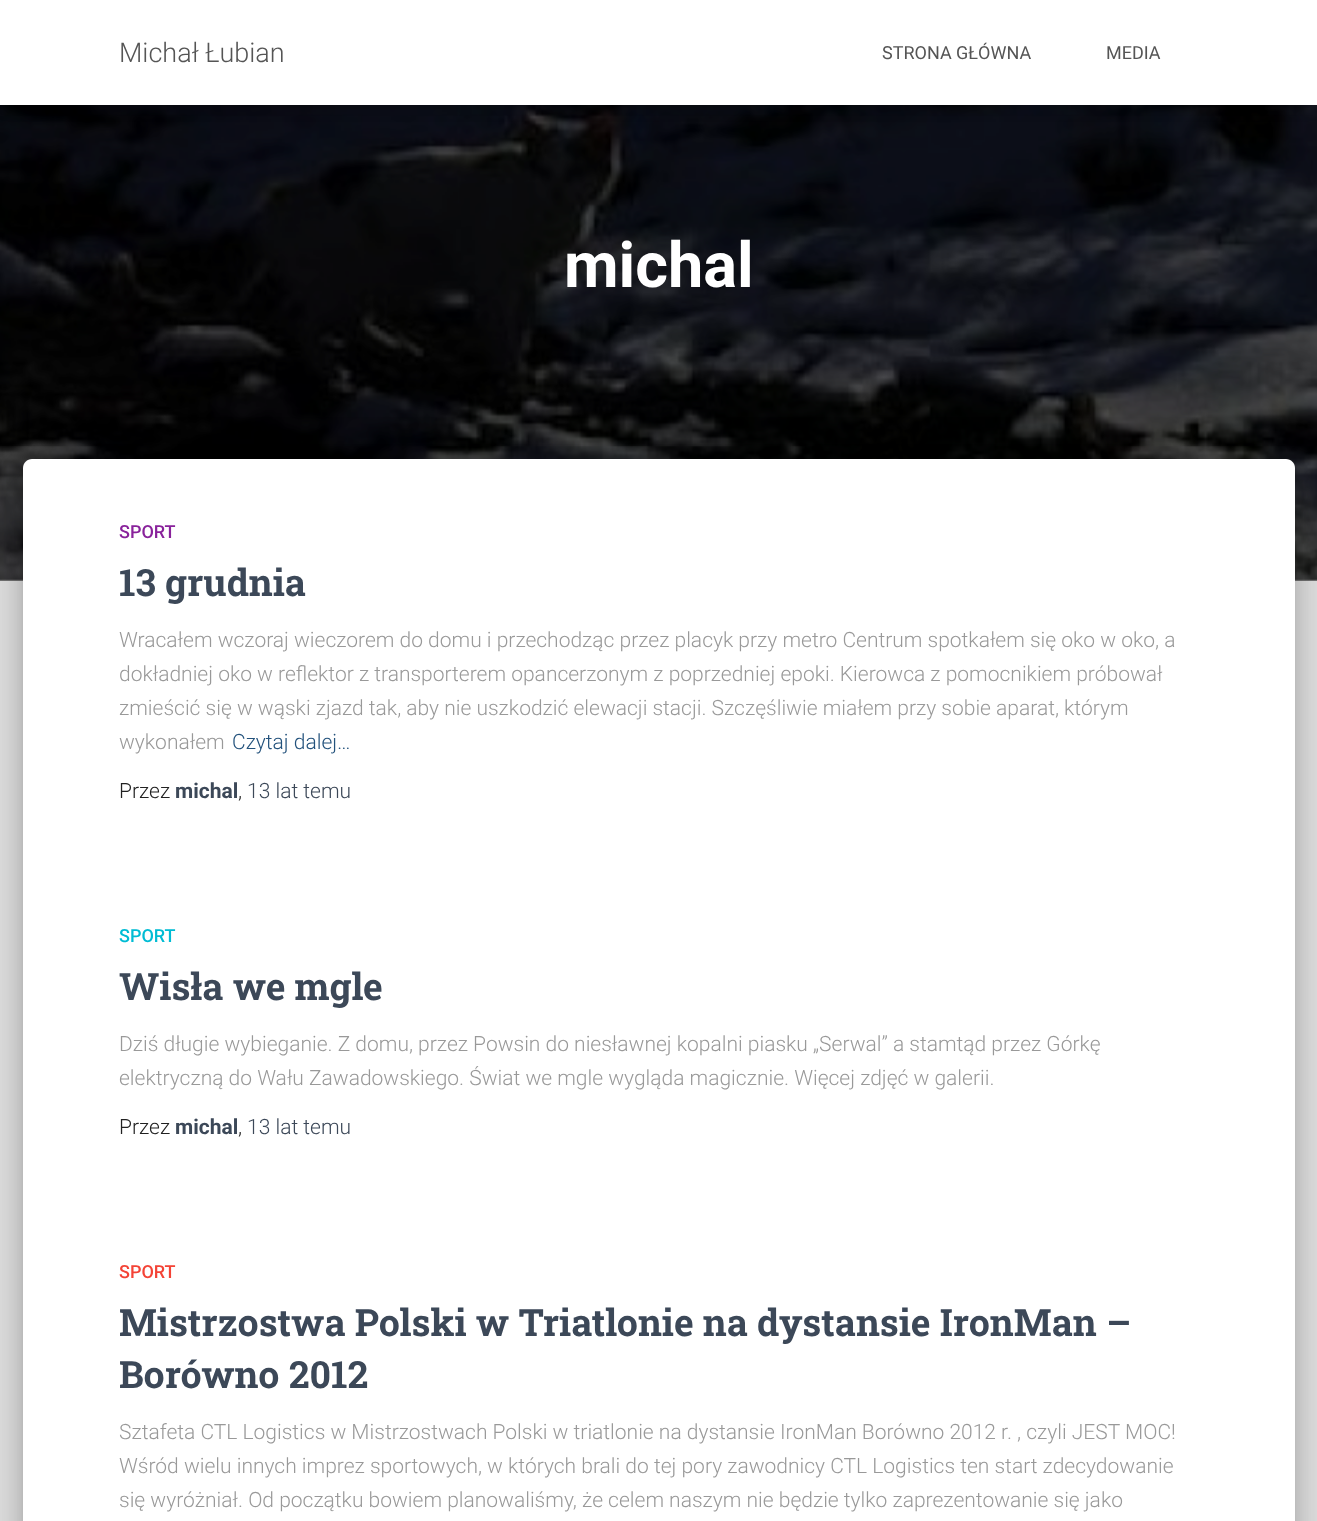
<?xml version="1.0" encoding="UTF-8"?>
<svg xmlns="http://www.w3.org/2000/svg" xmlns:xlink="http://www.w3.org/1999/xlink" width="1317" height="1521">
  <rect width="100%" height="100%" fill="#e5e5e5" />
  <rect y="579" width="1317" height="2" fill="#737373" />
  <image x="0" y="105" width="1317" height="475" xlink:href="image1.png" />
  <rect x="3" y="9" width="1311" height="99" fill="#000000" fill-opacity="0.1" filter="blur(4px)" />
  <rect y="2" width="1317" height="105" fill="#000000" fill-opacity="0.12" filter="blur(7.5px)" />
  <rect width="1317" height="105" fill="#ffffff" />
  <rect x="30" y="479" width="1257" height="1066" rx="1.5" fill="#000000" fill-opacity="0.2" filter="blur(7.5px)" />
  <rect x="15" y="461" width="1287" height="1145" rx="17" fill="#000000" fill-opacity="0.12" filter="blur(22.5px)" />
  <rect x="20" y="480" width="1278" height="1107" rx="12" fill="#000000" fill-opacity="0.14" filter="blur(18px)" />
  <path d="M 32 459 h 1254 c 5 0 9 4 9 9 v 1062 h -1272 v -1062 c 0 -5 4 -9 9 -9 z" fill="#ffffff" />
  <text x="119" y="62" style="font-family: Roboto; font-size: 27px; font-weight: 300; fill: #555555">Michał Łubian</text>
  <text x="882" y="59" style="font-family: Roboto; font-size: 18px; fill: #555555">STRONA GŁÓWNA</text>
  <text x="1106" y="59" style="font-family: Roboto; font-size: 18px; fill: #555555">MEDIA</text>
  <text x="564" y="287" style="font-family: Roboto; font-size: 63px; font-weight: bold; fill: #ffffff">michal</text>
  <text x="119" y="538" style="font-family: Roboto; font-size: 18px; font-weight: 500; fill: #89229b">SPORT</text>
  <text x="119" y="596" style="font-family: Roboto Slab; font-size: 37.5px; font-weight: bold; fill: #3c4858">13 grudnia</text>
  <text x="119" y="647" style="font-family: Roboto; font-size: 21px; font-weight: 300; fill: #999999">Wracałem wczoraj wieczorem do domu i przechodząc przez placyk przy metro Centrum spotkałem się oko w oko, a</text>
  <text x="119" y="681" style="font-family: Roboto; font-size: 21px; font-weight: 300; fill: #999999">dokładniej oko w reflektor z transporterem opancerzonym z poprzedniej epoki. Kierowca z pomocnikiem próbował</text>
  <text x="119" y="715" style="font-family: Roboto; font-size: 21px; font-weight: 300; fill: #999999">zmieścić się w wąski zjazd tak, aby nie uszkodzić elewacji stacji. Szczęśliwie miałem przy sobie aparat, którym</text>
  <text x="119" y="749" style="font-family: Roboto; font-size: 21px; font-weight: 300; fill: #999999">wykonałem</text>
  <text x="232" y="749" style="font-family: Roboto; font-size: 21px; font-weight: 300; fill: #23527c">Czytaj dalej…</text>
  <text x="119" y="798" style="font-family: Roboto; font-size: 21px; font-weight: 300; fill: #212121">Przez</text>
  <text x="175" y="798" style="font-family: Roboto; font-size: 21px; font-weight: bold; fill: #3c4858">michal</text>
  <text x="238" y="798" style="font-family: Roboto; font-size: 21px; font-weight: 300; fill: #212121">,</text>
  <text x="247" y="798" style="font-family: Roboto; font-size: 21px; font-weight: 300; fill: #3c4858">13 lat temu</text>
  <text x="119" y="942" style="font-family: Roboto; font-size: 18px; font-weight: 500; fill: #00bcd4">SPORT</text>
  <text x="119" y="1000" style="font-family: Roboto Slab; font-size: 37.5px; font-weight: bold; fill: #3c4858">Wisła we mgle</text>
  <text x="119" y="1051" style="font-family: Roboto; font-size: 21px; font-weight: 300; fill: #999999">Dziś długie wybieganie. Z domu, przez Powsin do niesławnej kopalni piasku „Serwal” a stamtąd przez Górkę</text>
  <text x="119" y="1085" style="font-family: Roboto; font-size: 21px; font-weight: 300; fill: #999999">elektryczną do Wału Zawadowskiego. Świat we mgle wygląda magicznie. Więcej zdjęć w galerii.</text>
  <text x="119" y="1134" style="font-family: Roboto; font-size: 21px; font-weight: 300; fill: #212121">Przez</text>
  <text x="175" y="1134" style="font-family: Roboto; font-size: 21px; font-weight: bold; fill: #3c4858">michal</text>
  <text x="238" y="1134" style="font-family: Roboto; font-size: 21px; font-weight: 300; fill: #212121">,</text>
  <text x="247" y="1134" style="font-family: Roboto; font-size: 21px; font-weight: 300; fill: #3c4858">13 lat temu</text>
  <text x="119" y="1278" style="font-family: Roboto; font-size: 18px; font-weight: 500; fill: #f44336">SPORT</text>
  <text x="119" y="1336" style="font-family: Roboto Slab; font-size: 37.5px; font-weight: bold; fill: #3c4858">Mistrzostwa Polski w Triatlonie na dystansie IronMan –</text>
  <text x="119" y="1388" style="font-family: Roboto Slab; font-size: 37.5px; font-weight: bold; fill: #3c4858">Borówno 2012</text>
  <text x="119" y="1439" style="font-family: Roboto; font-size: 21px; font-weight: 300; fill: #999999">Sztafeta CTL Logistics w Mistrzostwach Polski w triatlonie na dystansie IronMan Borówno 2012 r. , czyli JEST MOC!</text>
  <text x="119" y="1473" style="font-family: Roboto; font-size: 21px; font-weight: 300; fill: #999999">Wśród wielu innych imprez sportowych, w których brali do tej pory zawodnicy CTL Logistics ten start zdecydowanie</text>
  <text x="119" y="1507" style="font-family: Roboto; font-size: 21px; font-weight: 300; fill: #999999">się wyróżniał. Od początku bowiem planowaliśmy, że celem naszym nie będzie tylko zaprezentowanie się jako</text>
</svg>
